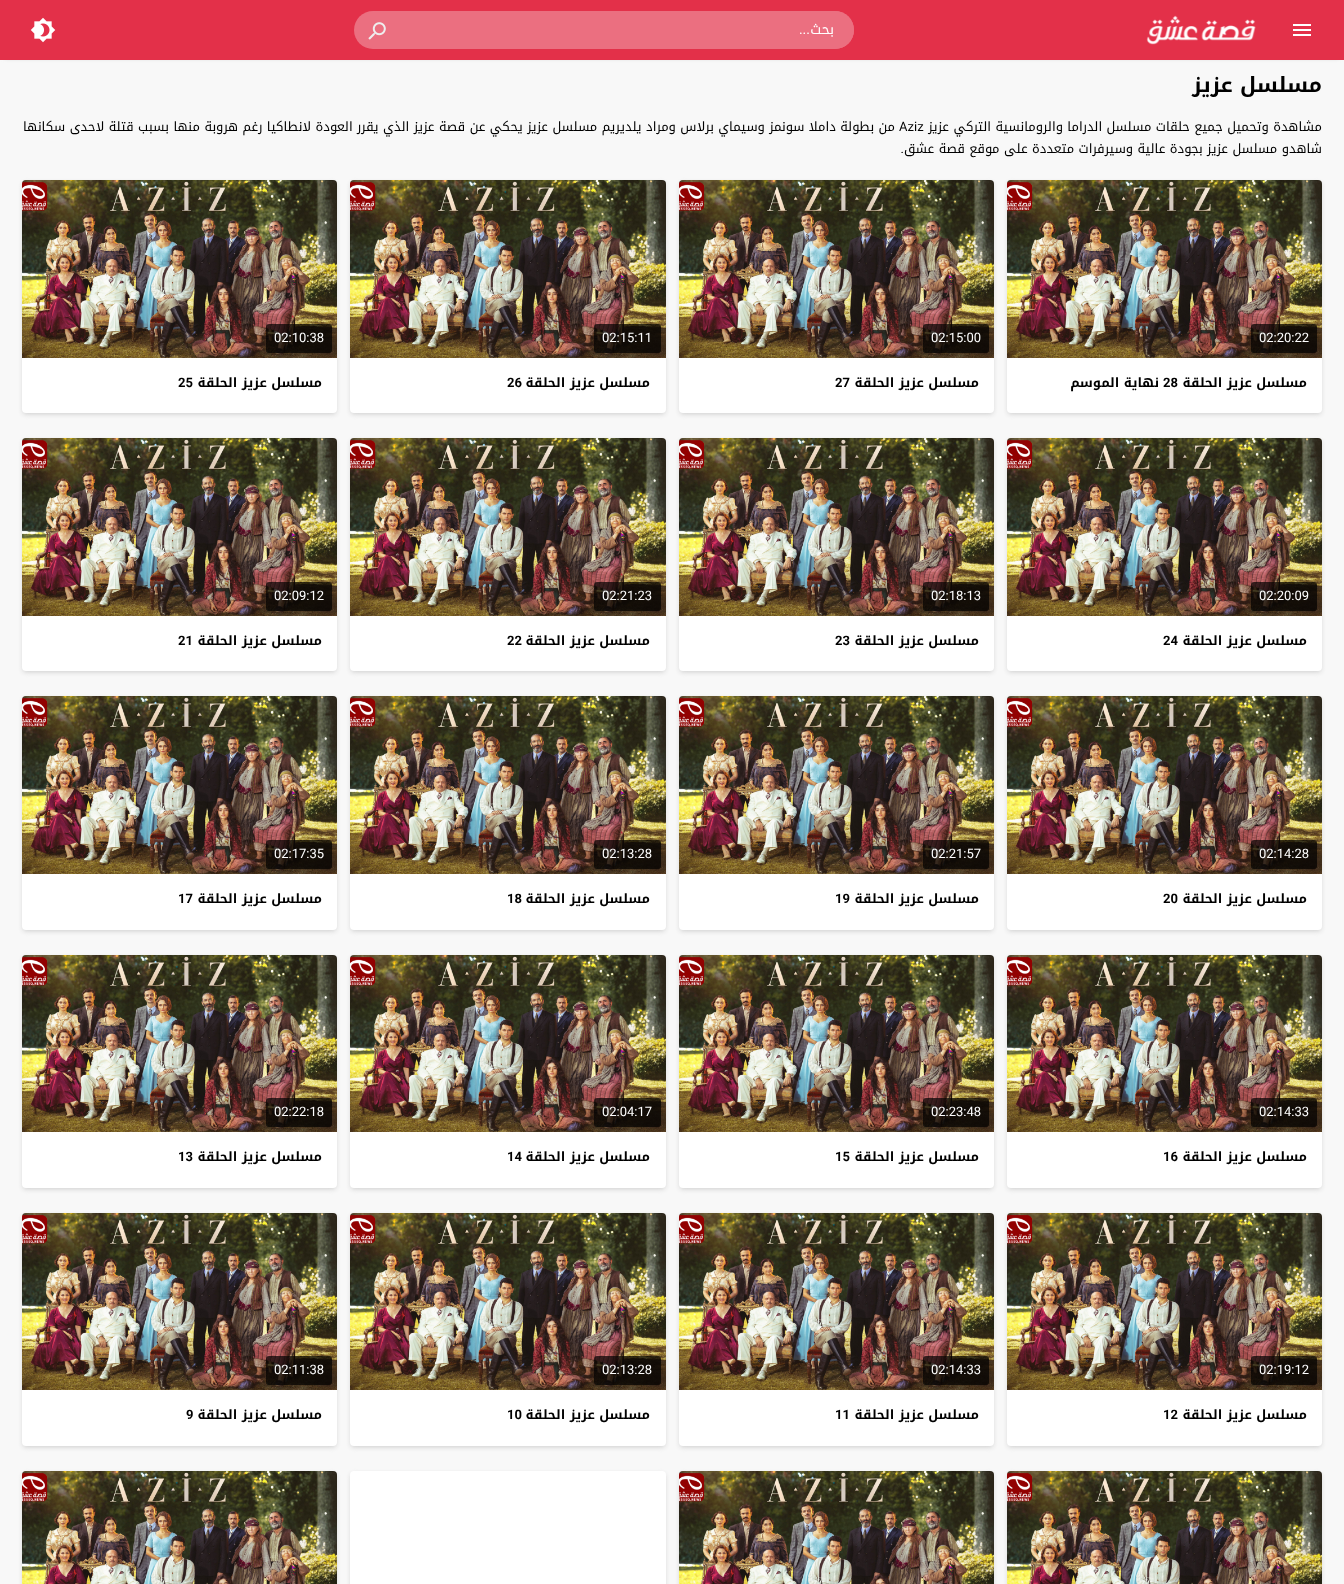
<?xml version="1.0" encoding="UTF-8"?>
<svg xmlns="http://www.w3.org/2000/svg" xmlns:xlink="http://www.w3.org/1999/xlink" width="1344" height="1584">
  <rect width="100%" height="100%" fill="#f8f8f8" />
  <rect x="5" y="7" width="1334" height="50" fill="#999999" filter="blur(2.5px)" />
  <rect width="1344" height="60" fill="#e33049" />
  <image x="1293" y="24" width="18" height="12" xlink:href="image1.png" />
  <image x="1146" y="15" width="110" height="30" xlink:href="image2.png" />
  <rect x="354" y="11" width="500" height="38" rx="19" fill="#eb6f80" />
  <path d="M 404 11 h 431 c 10.5 0 19 8.5 19 19 c 0 10.5 -8.5 19 -19 19 h -431 z" fill="#eb6f80" />
  <image x="368" y="22" width="18" height="18" xlink:href="image3.png" />
  <image x="30" y="17" width="26" height="26" xlink:href="image4.png" />
  <rect x="1008" y="183" width="313" height="231" rx="3" fill="#cccccc" filter="blur(2.5px)" />
  <rect x="1007" y="180" width="315" height="233" rx="4" fill="#ffffff" />
  <image x="1007" y="180" width="315" height="178" xlink:href="image5.png" />
  <rect x="1251" y="324" width="66" height="29" rx="3" fill="#000000" fill-opacity="0.7" />
  <rect x="680" y="183" width="313" height="231" rx="3" fill="#cccccc" filter="blur(2.5px)" />
  <rect x="679" y="180" width="315" height="233" rx="4" fill="#ffffff" />
  <image x="679" y="180" width="315" height="178" xlink:href="image6.png" />
  <rect x="923" y="324" width="66" height="29" rx="3" fill="#000000" fill-opacity="0.7" />
  <rect x="351" y="183" width="314" height="231" rx="3" fill="#cccccc" filter="blur(2.5px)" />
  <rect x="350" y="180" width="316" height="233" rx="4" fill="#ffffff" />
  <image x="350" y="180" width="316" height="178" xlink:href="image7.png" />
  <rect x="594" y="324" width="67" height="29" rx="3" fill="#000000" fill-opacity="0.7" />
  <rect x="23" y="183" width="313" height="231" rx="3" fill="#cccccc" filter="blur(2.5px)" />
  <rect x="22" y="180" width="315" height="233" rx="4" fill="#ffffff" />
  <image x="22" y="180" width="315" height="178" xlink:href="image8.png" />
  <rect x="266" y="324" width="66" height="29" rx="3" fill="#000000" fill-opacity="0.7" />
  <rect x="1008" y="441" width="313" height="231" rx="3" fill="#cccccc" filter="blur(2.5px)" />
  <rect x="1007" y="438" width="315" height="233" rx="4" fill="#ffffff" />
  <image x="1007" y="438" width="315" height="178" xlink:href="image9.png" />
  <rect x="1251" y="582" width="66" height="29" rx="3" fill="#000000" fill-opacity="0.7" />
  <rect x="680" y="441" width="313" height="231" rx="3" fill="#cccccc" filter="blur(2.5px)" />
  <rect x="679" y="438" width="315" height="233" rx="4" fill="#ffffff" />
  <image x="679" y="438" width="315" height="178" xlink:href="image10.png" />
  <rect x="923" y="582" width="66" height="29" rx="3" fill="#000000" fill-opacity="0.7" />
  <rect x="351" y="441" width="314" height="231" rx="3" fill="#cccccc" filter="blur(2.5px)" />
  <rect x="350" y="438" width="316" height="233" rx="4" fill="#ffffff" />
  <image x="350" y="438" width="316" height="178" xlink:href="image11.png" />
  <rect x="594" y="582" width="67" height="29" rx="3" fill="#000000" fill-opacity="0.7" />
  <rect x="23" y="441" width="313" height="231" rx="3" fill="#cccccc" filter="blur(2.5px)" />
  <rect x="22" y="438" width="315" height="233" rx="4" fill="#ffffff" />
  <image x="22" y="438" width="315" height="178" xlink:href="image12.png" />
  <rect x="266" y="582" width="66" height="29" rx="3" fill="#000000" fill-opacity="0.7" />
  <rect x="1008" y="699" width="313" height="232" rx="3" fill="#cccccc" filter="blur(2.5px)" />
  <rect x="1007" y="696" width="315" height="234" rx="4" fill="#ffffff" />
  <image x="1007" y="696" width="315" height="178" xlink:href="image5.png" />
  <rect x="1251" y="840" width="66" height="29" rx="3" fill="#000000" fill-opacity="0.7" />
  <rect x="680" y="699" width="313" height="232" rx="3" fill="#cccccc" filter="blur(2.5px)" />
  <rect x="679" y="696" width="315" height="234" rx="4" fill="#ffffff" />
  <image x="679" y="696" width="315" height="178" xlink:href="image6.png" />
  <rect x="923" y="840" width="66" height="29" rx="3" fill="#000000" fill-opacity="0.7" />
  <rect x="351" y="699" width="314" height="232" rx="3" fill="#cccccc" filter="blur(2.5px)" />
  <rect x="350" y="696" width="316" height="234" rx="4" fill="#ffffff" />
  <image x="350" y="696" width="316" height="178" xlink:href="image7.png" />
  <rect x="594" y="840" width="67" height="29" rx="3" fill="#000000" fill-opacity="0.7" />
  <rect x="23" y="699" width="313" height="232" rx="3" fill="#cccccc" filter="blur(2.5px)" />
  <rect x="22" y="696" width="315" height="234" rx="4" fill="#ffffff" />
  <image x="22" y="696" width="315" height="178" xlink:href="image8.png" />
  <rect x="266" y="840" width="66" height="29" rx="3" fill="#000000" fill-opacity="0.7" />
  <rect x="1008" y="958" width="313" height="231" rx="3" fill="#cccccc" filter="blur(2.5px)" />
  <rect x="1007" y="955" width="315" height="233" rx="4" fill="#ffffff" />
  <image x="1007" y="955" width="315" height="177" xlink:href="image13.png" />
  <rect x="1251" y="1098" width="66" height="29" rx="3" fill="#000000" fill-opacity="0.7" />
  <rect x="680" y="958" width="313" height="231" rx="3" fill="#cccccc" filter="blur(2.5px)" />
  <rect x="679" y="955" width="315" height="233" rx="4" fill="#ffffff" />
  <image x="679" y="955" width="315" height="177" xlink:href="image14.png" />
  <rect x="923" y="1098" width="66" height="29" rx="3" fill="#000000" fill-opacity="0.7" />
  <rect x="351" y="958" width="314" height="231" rx="3" fill="#cccccc" filter="blur(2.5px)" />
  <rect x="350" y="955" width="316" height="233" rx="4" fill="#ffffff" />
  <image x="350" y="955" width="316" height="177" xlink:href="image15.png" />
  <rect x="594" y="1098" width="67" height="29" rx="3" fill="#000000" fill-opacity="0.7" />
  <rect x="23" y="958" width="313" height="231" rx="3" fill="#cccccc" filter="blur(2.5px)" />
  <rect x="22" y="955" width="315" height="233" rx="4" fill="#ffffff" />
  <image x="22" y="955" width="315" height="177" xlink:href="image16.png" />
  <rect x="266" y="1098" width="66" height="29" rx="3" fill="#000000" fill-opacity="0.7" />
  <rect x="1008" y="1216" width="313" height="231" rx="3" fill="#cccccc" filter="blur(2.5px)" />
  <rect x="1007" y="1213" width="315" height="233" rx="4" fill="#ffffff" />
  <image x="1007" y="1213" width="315" height="177" xlink:href="image13.png" />
  <rect x="1251" y="1356" width="66" height="29" rx="3" fill="#000000" fill-opacity="0.7" />
  <rect x="680" y="1216" width="313" height="231" rx="3" fill="#cccccc" filter="blur(2.5px)" />
  <rect x="679" y="1213" width="315" height="233" rx="4" fill="#ffffff" />
  <image x="679" y="1213" width="315" height="177" xlink:href="image14.png" />
  <rect x="923" y="1356" width="66" height="29" rx="3" fill="#000000" fill-opacity="0.7" />
  <rect x="351" y="1216" width="314" height="231" rx="3" fill="#cccccc" filter="blur(2.5px)" />
  <rect x="350" y="1213" width="316" height="233" rx="4" fill="#ffffff" />
  <image x="350" y="1213" width="316" height="177" xlink:href="image15.png" />
  <rect x="594" y="1356" width="67" height="29" rx="3" fill="#000000" fill-opacity="0.7" />
  <rect x="23" y="1216" width="313" height="231" rx="3" fill="#cccccc" filter="blur(2.5px)" />
  <rect x="22" y="1213" width="315" height="233" rx="4" fill="#ffffff" />
  <image x="22" y="1213" width="315" height="177" xlink:href="image16.png" />
  <rect x="266" y="1356" width="66" height="29" rx="3" fill="#000000" fill-opacity="0.7" />
  <rect x="1008" y="1474" width="313" height="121" rx="3" fill="#cccccc" filter="blur(2.5px)" />
  <image x="1007" y="1471" width="315" height="113" xlink:href="image17.png" />
  <rect x="680" y="1474" width="313" height="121" rx="3" fill="#cccccc" filter="blur(2.5px)" />
  <image x="679" y="1471" width="315" height="113" xlink:href="image18.png" />
  <rect x="351" y="1474" width="314" height="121" rx="3" fill="#cccccc" filter="blur(2.5px)" />
  <rect x="350" y="1471" width="316" height="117" rx="4" fill="#ffffff" />
  <rect x="23" y="1474" width="313" height="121" rx="3" fill="#cccccc" filter="blur(2.5px)" />
  <image x="22" y="1471" width="315" height="113" xlink:href="image19.png" />
  <text x="834" y="34" style="font-family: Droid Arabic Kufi; font-size: 14px; direction: rtl; fill: #ffffff">بحث</text>
  <text x="810" y="34" style="font-family: Roboto; font-size: 14px; direction: rtl; fill: #ffffff">...</text>
  <text x="1322" y="92" style="font-family: Droid Arabic Kufi; font-size: 21px; font-weight: bold; direction: rtl; fill: #000000">مسلسل عزيز</text>
  <text x="1322" y="131" style="font-family: Droid Arabic Kufi; font-size: 13px; direction: rtl; fill: #000000">مشاهدة وتحميل جميع حلقات مسلسل الدراما والرومانسية التركي عزيز</text>
  <text x="899" y="131" style="font-family: Roboto; font-size: 13px; fill: #000000">Aziz</text>
  <text x="895" y="131" style="font-family: Droid Arabic Kufi; font-size: 13px; direction: rtl; fill: #000000">من بطولة داملا سونمز وسيماي برلاس ومراد يلديريم مسلسل عزيز يحكي عن قصة عزيز الذي يقرر العودة لانطاكيا رغم هروبة منها بسبب قتلة لاحدى سكانها</text>
  <text x="1322" y="153" style="font-family: Droid Arabic Kufi; font-size: 13px; direction: rtl; fill: #000000">شاهدو مسلسل عزيز بجودة عالية وسيرفرات متعددة على موقع قصة عشق</text>
  <text x="904" y="153" style="font-family: Roboto; font-size: 13px; direction: rtl; fill: #000000">.</text>
  <text x="1259" y="342" style="font-family: Roboto; font-size: 13px; fill: #ffffff">02:20:22</text>
  <text x="1307" y="387" style="font-family: Droid Arabic Kufi; font-size: 13px; font-weight: bold; direction: rtl; fill: #000000">مسلسل عزيز الحلقة</text>
  <text x="1163" y="387" style="font-family: Roboto; font-size: 13px; font-weight: bold; fill: #000000">28</text>
  <text x="1159" y="387" style="font-family: Droid Arabic Kufi; font-size: 13px; font-weight: bold; direction: rtl; fill: #000000">نهاية الموسم</text>
  <text x="931" y="342" style="font-family: Roboto; font-size: 13px; fill: #ffffff">02:15:00</text>
  <text x="979" y="387" style="font-family: Droid Arabic Kufi; font-size: 13px; font-weight: bold; direction: rtl; fill: #000000">مسلسل عزيز الحلقة</text>
  <text x="835" y="387" style="font-family: Roboto; font-size: 13px; font-weight: bold; fill: #000000">27</text>
  <text x="602" y="342" style="font-family: Roboto; font-size: 13px; fill: #ffffff">02:15:11</text>
  <text x="650" y="387" style="font-family: Droid Arabic Kufi; font-size: 13px; font-weight: bold; direction: rtl; fill: #000000">مسلسل عزيز الحلقة</text>
  <text x="507" y="387" style="font-family: Roboto; font-size: 13px; font-weight: bold; fill: #000000">26</text>
  <text x="274" y="342" style="font-family: Roboto; font-size: 13px; fill: #ffffff">02:10:38</text>
  <text x="322" y="387" style="font-family: Droid Arabic Kufi; font-size: 13px; font-weight: bold; direction: rtl; fill: #000000">مسلسل عزيز الحلقة</text>
  <text x="178" y="387" style="font-family: Roboto; font-size: 13px; font-weight: bold; fill: #000000">25</text>
  <text x="1259" y="600" style="font-family: Roboto; font-size: 13px; fill: #ffffff">02:20:09</text>
  <text x="1307" y="645" style="font-family: Droid Arabic Kufi; font-size: 13px; font-weight: bold; direction: rtl; fill: #000000">مسلسل عزيز الحلقة</text>
  <text x="1163" y="645" style="font-family: Roboto; font-size: 13px; font-weight: bold; fill: #000000">24</text>
  <text x="931" y="600" style="font-family: Roboto; font-size: 13px; fill: #ffffff">02:18:13</text>
  <text x="979" y="645" style="font-family: Droid Arabic Kufi; font-size: 13px; font-weight: bold; direction: rtl; fill: #000000">مسلسل عزيز الحلقة</text>
  <text x="835" y="645" style="font-family: Roboto; font-size: 13px; font-weight: bold; fill: #000000">23</text>
  <text x="602" y="600" style="font-family: Roboto; font-size: 13px; fill: #ffffff">02:21:23</text>
  <text x="650" y="645" style="font-family: Droid Arabic Kufi; font-size: 13px; font-weight: bold; direction: rtl; fill: #000000">مسلسل عزيز الحلقة</text>
  <text x="507" y="645" style="font-family: Roboto; font-size: 13px; font-weight: bold; fill: #000000">22</text>
  <text x="274" y="600" style="font-family: Roboto; font-size: 13px; fill: #ffffff">02:09:12</text>
  <text x="322" y="645" style="font-family: Droid Arabic Kufi; font-size: 13px; font-weight: bold; direction: rtl; fill: #000000">مسلسل عزيز الحلقة</text>
  <text x="178" y="645" style="font-family: Roboto; font-size: 13px; font-weight: bold; fill: #000000">21</text>
  <text x="1259" y="858" style="font-family: Roboto; font-size: 13px; fill: #ffffff">02:14:28</text>
  <text x="1307" y="903" style="font-family: Droid Arabic Kufi; font-size: 13px; font-weight: bold; direction: rtl; fill: #000000">مسلسل عزيز الحلقة</text>
  <text x="1163" y="903" style="font-family: Roboto; font-size: 13px; font-weight: bold; fill: #000000">20</text>
  <text x="931" y="858" style="font-family: Roboto; font-size: 13px; fill: #ffffff">02:21:57</text>
  <text x="979" y="903" style="font-family: Droid Arabic Kufi; font-size: 13px; font-weight: bold; direction: rtl; fill: #000000">مسلسل عزيز الحلقة</text>
  <text x="835" y="903" style="font-family: Roboto; font-size: 13px; font-weight: bold; fill: #000000">19</text>
  <text x="602" y="858" style="font-family: Roboto; font-size: 13px; fill: #ffffff">02:13:28</text>
  <text x="650" y="903" style="font-family: Droid Arabic Kufi; font-size: 13px; font-weight: bold; direction: rtl; fill: #000000">مسلسل عزيز الحلقة</text>
  <text x="507" y="903" style="font-family: Roboto; font-size: 13px; font-weight: bold; fill: #000000">18</text>
  <text x="274" y="858" style="font-family: Roboto; font-size: 13px; fill: #ffffff">02:17:35</text>
  <text x="322" y="903" style="font-family: Droid Arabic Kufi; font-size: 13px; font-weight: bold; direction: rtl; fill: #000000">مسلسل عزيز الحلقة</text>
  <text x="178" y="903" style="font-family: Roboto; font-size: 13px; font-weight: bold; fill: #000000">17</text>
  <text x="1259" y="1116" style="font-family: Roboto; font-size: 13px; fill: #ffffff">02:14:33</text>
  <text x="1307" y="1161" style="font-family: Droid Arabic Kufi; font-size: 13px; font-weight: bold; direction: rtl; fill: #000000">مسلسل عزيز الحلقة</text>
  <text x="1163" y="1161" style="font-family: Roboto; font-size: 13px; font-weight: bold; fill: #000000">16</text>
  <text x="931" y="1116" style="font-family: Roboto; font-size: 13px; fill: #ffffff">02:23:48</text>
  <text x="979" y="1161" style="font-family: Droid Arabic Kufi; font-size: 13px; font-weight: bold; direction: rtl; fill: #000000">مسلسل عزيز الحلقة</text>
  <text x="835" y="1161" style="font-family: Roboto; font-size: 13px; font-weight: bold; fill: #000000">15</text>
  <text x="602" y="1116" style="font-family: Roboto; font-size: 13px; fill: #ffffff">02:04:17</text>
  <text x="650" y="1161" style="font-family: Droid Arabic Kufi; font-size: 13px; font-weight: bold; direction: rtl; fill: #000000">مسلسل عزيز الحلقة</text>
  <text x="507" y="1161" style="font-family: Roboto; font-size: 13px; font-weight: bold; fill: #000000">14</text>
  <text x="274" y="1116" style="font-family: Roboto; font-size: 13px; fill: #ffffff">02:22:18</text>
  <text x="322" y="1161" style="font-family: Droid Arabic Kufi; font-size: 13px; font-weight: bold; direction: rtl; fill: #000000">مسلسل عزيز الحلقة</text>
  <text x="178" y="1161" style="font-family: Roboto; font-size: 13px; font-weight: bold; fill: #000000">13</text>
  <text x="1259" y="1374" style="font-family: Roboto; font-size: 13px; fill: #ffffff">02:19:12</text>
  <text x="1307" y="1419" style="font-family: Droid Arabic Kufi; font-size: 13px; font-weight: bold; direction: rtl; fill: #000000">مسلسل عزيز الحلقة</text>
  <text x="1163" y="1419" style="font-family: Roboto; font-size: 13px; font-weight: bold; fill: #000000">12</text>
  <text x="931" y="1374" style="font-family: Roboto; font-size: 13px; fill: #ffffff">02:14:33</text>
  <text x="979" y="1419" style="font-family: Droid Arabic Kufi; font-size: 13px; font-weight: bold; direction: rtl; fill: #000000">مسلسل عزيز الحلقة</text>
  <text x="835" y="1419" style="font-family: Roboto; font-size: 13px; font-weight: bold; fill: #000000">11</text>
  <text x="602" y="1374" style="font-family: Roboto; font-size: 13px; fill: #ffffff">02:13:28</text>
  <text x="650" y="1419" style="font-family: Droid Arabic Kufi; font-size: 13px; font-weight: bold; direction: rtl; fill: #000000">مسلسل عزيز الحلقة</text>
  <text x="507" y="1419" style="font-family: Roboto; font-size: 13px; font-weight: bold; fill: #000000">10</text>
  <text x="274" y="1374" style="font-family: Roboto; font-size: 13px; fill: #ffffff">02:11:38</text>
  <text x="322" y="1419" style="font-family: Droid Arabic Kufi; font-size: 13px; font-weight: bold; direction: rtl; fill: #000000">مسلسل عزيز الحلقة</text>
  <text x="186" y="1419" style="font-family: Roboto; font-size: 13px; font-weight: bold; fill: #000000">9</text>
</svg>
